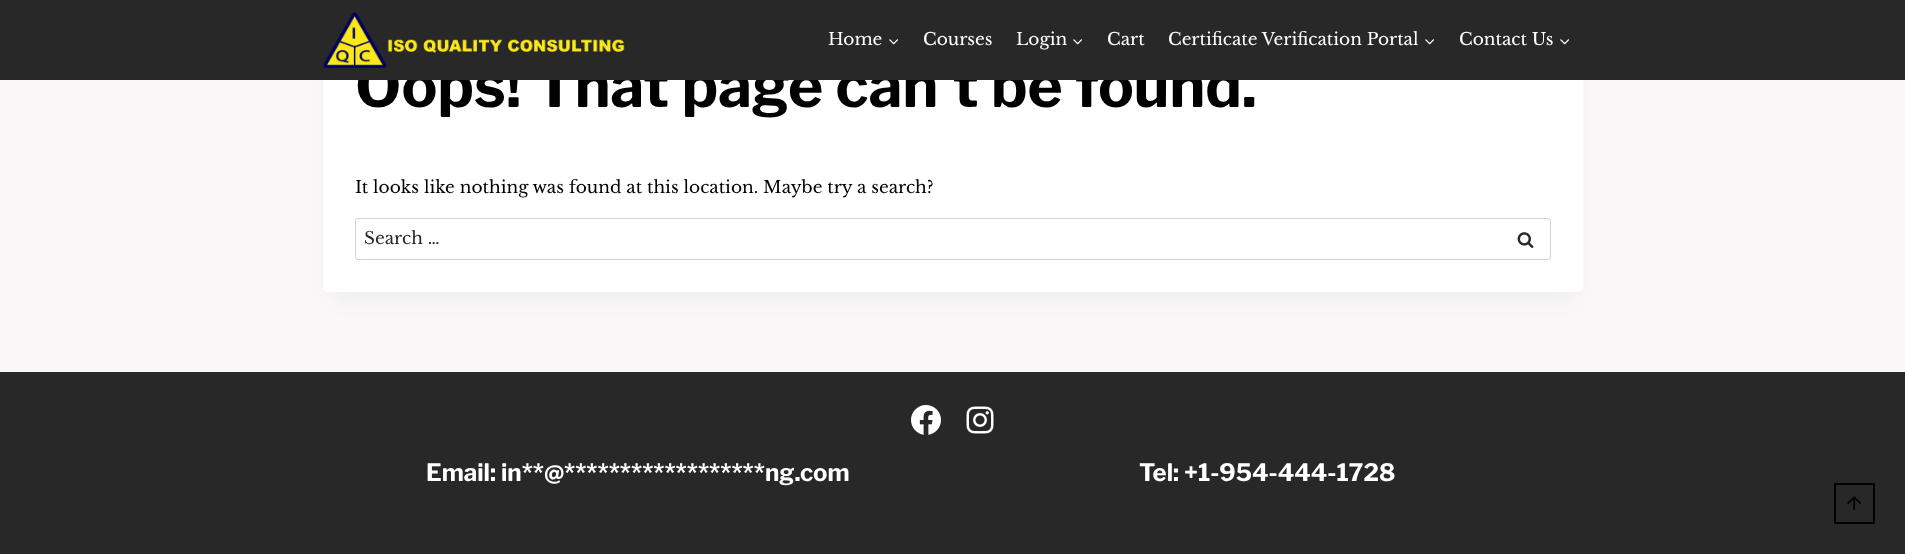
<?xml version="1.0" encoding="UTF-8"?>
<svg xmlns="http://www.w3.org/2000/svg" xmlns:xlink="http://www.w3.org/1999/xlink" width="1905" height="554">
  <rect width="100%" height="100%" fill="#f9f7f7" />
  <rect x="333" y="34" width="1240" height="263" fill="#000000" fill-opacity="0.05" filter="blur(12.5px)" />
  <rect x="323" y="9" width="1260" height="283" rx="4" fill="#ffffff" />
  <rect x="355.5" y="218.5" width="1195" height="41" rx="2.5" fill="none" stroke="#cbd5e0" />
  <image x="1517" y="232" width="17" height="16" xlink:href="image3.png" />
  <rect y="372" width="1905" height="182" fill="#282828" />
  <image x="911" y="405" width="30" height="30" xlink:href="image4.png" />
  <image x="966" y="406" width="28" height="28" xlink:href="image5.png" />
  <rect x="1835" y="484" width="39" height="39" fill="none" stroke="#010101" stroke-width="2" />
  <image x="1847" y="496" width="14" height="14" xlink:href="image6.png" />
  <text x="355" y="107" style="font-family: Libre Franklin; font-size: 60px; font-weight: bold; fill: #000000">Oops! That page can’t be found.</text>
  <rect width="1905" height="80" fill="#282828" />
  <image x="1560" y="39" width="10" height="6" xlink:href="image2.png" />
  <text x="1459" y="45" style="font-family: Libre Baskerville; font-size: 17px; fill: #ffffff">Contact Us</text>
  <image x="1425" y="39" width="10" height="6" xlink:href="image2.png" />
  <text x="1168" y="45" style="font-family: Libre Baskerville; font-size: 17px; fill: #ffffff">Certificate Verification Portal</text>
  <text x="1107" y="45" style="font-family: Libre Baskerville; font-size: 17px; fill: #ffffff">Cart</text>
  <image x="1073" y="39" width="10" height="6" xlink:href="image2.png" />
  <text x="1016" y="45" style="font-family: Libre Baskerville; font-size: 17px; fill: #ffffff">Login</text>
  <text x="923" y="45" style="font-family: Libre Baskerville; font-size: 17px; fill: #ffffff">Courses</text>
  <image x="889" y="39" width="10" height="6" xlink:href="image2.png" />
  <text x="828" y="45" style="font-family: Libre Baskerville; font-size: 17px; fill: #ffffff">Home</text>
  <image x="323" y="12" width="302" height="56" xlink:href="image1.png" />
  <text x="355" y="193" style="font-family: Libre Baskerville; font-size: 17px; fill: #000000">It looks like nothing was found at this location. Maybe try a search?</text>
  <text x="364" y="244" style="font-family: Libre Baskerville; font-size: 17px; fill: #282828">Search …</text>
  <text x="426" y="481" style="font-family: Libre Franklin; font-size: 24px; font-weight: bold; fill: #ffffff">Email: in**</text>
  <text x="544" y="481" style="font-family: Libre Franklin; font-size: 24px; font-weight: bold; fill: #ffffff">@******************</text>
  <text x="765" y="481" style="font-family: Libre Franklin; font-size: 24px; font-weight: bold; fill: #ffffff">ng.com</text>
  <text x="1139" y="481" style="font-family: Libre Franklin; font-size: 24px; font-weight: bold; fill: #ffffff">Tel: +1-954-444-1728</text>
</svg>
